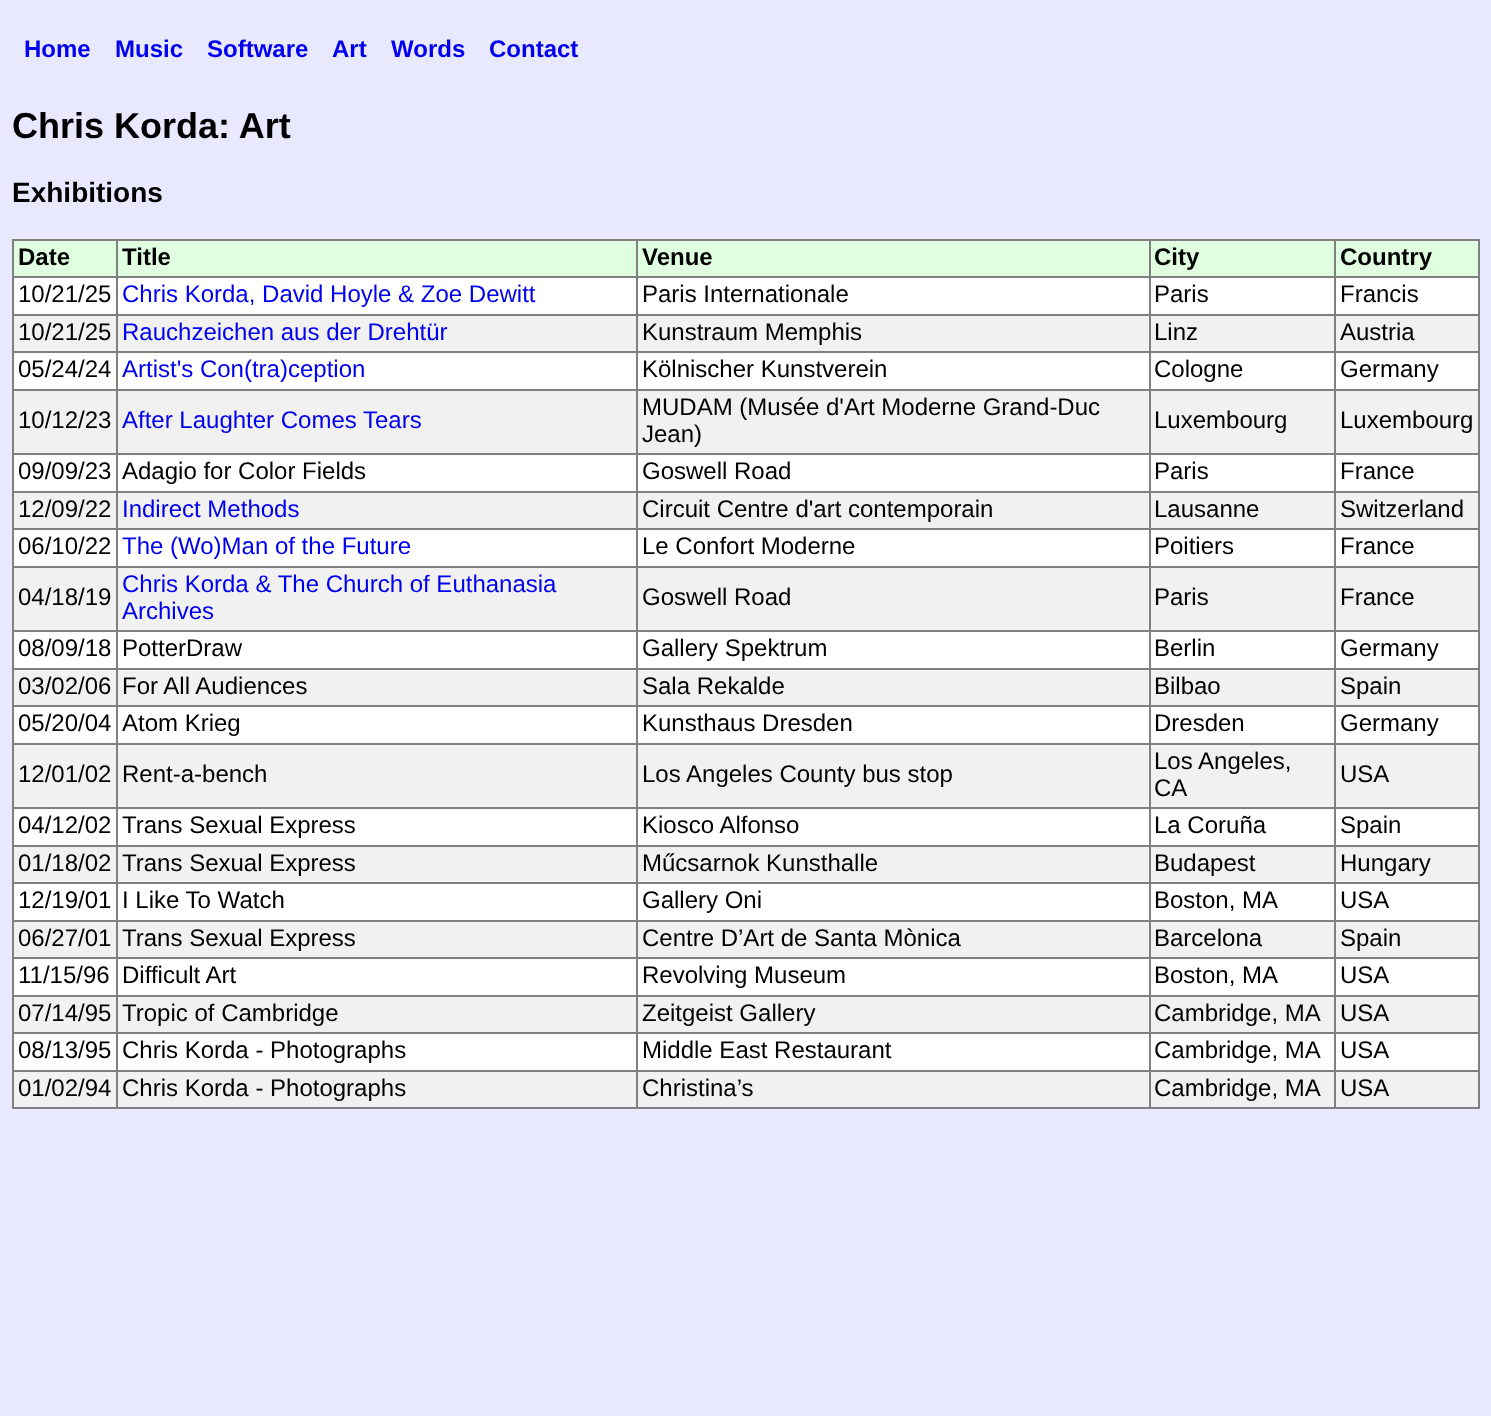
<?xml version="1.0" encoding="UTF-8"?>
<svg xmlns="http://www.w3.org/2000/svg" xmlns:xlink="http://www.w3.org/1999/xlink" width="1491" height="1416">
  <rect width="100%" height="100%" fill="#e8e8ff" />
  <rect x="14" y="278" width="1464" height="792" fill="#ffffff" />
  <rect x="12" y="239" width="1467" height="2" fill="#808080" />
  <rect x="1478" y="239" width="2" height="870" fill="#808080" />
  <rect x="12" y="1107" width="1467" height="2" fill="#808080" />
  <rect x="12" y="239" width="2" height="870" fill="#808080" />
  <rect x="14" y="241" width="102" height="35" fill="#e0ffe0" />
  <rect x="118" y="241" width="518" height="35" fill="#e0ffe0" />
  <rect x="1334" y="276" width="145" height="2" fill="#808080" />
  <rect x="1334" y="314" width="145" height="2" fill="#808080" />
  <rect x="14" y="316" width="1464" height="35" fill="#f1f1f1" />
  <rect x="1334" y="351" width="145" height="2" fill="#808080" />
  <rect x="1334" y="389" width="145" height="2" fill="#808080" />
  <rect x="14" y="391" width="1464" height="62" fill="#f1f1f1" />
  <rect x="1334" y="453" width="145" height="2" fill="#808080" />
  <rect x="1334" y="491" width="145" height="2" fill="#808080" />
  <rect x="14" y="493" width="1464" height="35" fill="#f1f1f1" />
  <rect x="1334" y="528" width="145" height="2" fill="#808080" />
  <rect x="1334" y="566" width="145" height="2" fill="#808080" />
  <rect x="14" y="568" width="1464" height="62" fill="#f1f1f1" />
  <rect x="1334" y="630" width="145" height="2" fill="#808080" />
  <rect x="1334" y="668" width="145" height="2" fill="#808080" />
  <rect x="14" y="670" width="1464" height="35" fill="#f1f1f1" />
  <rect x="1334" y="705" width="145" height="2" fill="#808080" />
  <rect x="1334" y="743" width="145" height="2" fill="#808080" />
  <rect x="14" y="745" width="1464" height="62" fill="#f1f1f1" />
  <rect x="1334" y="807" width="145" height="2" fill="#808080" />
  <rect x="1334" y="845" width="145" height="2" fill="#808080" />
  <rect x="14" y="847" width="1464" height="35" fill="#f1f1f1" />
  <rect x="1334" y="882" width="145" height="2" fill="#808080" />
  <rect x="1334" y="920" width="145" height="2" fill="#808080" />
  <rect x="14" y="922" width="1464" height="35" fill="#f1f1f1" />
  <rect x="1334" y="957" width="145" height="2" fill="#808080" />
  <rect x="1334" y="995" width="145" height="2" fill="#808080" />
  <rect x="14" y="997" width="1464" height="35" fill="#f1f1f1" />
  <rect x="1334" y="1032" width="145" height="2" fill="#808080" />
  <rect x="1334" y="1070" width="145" height="2" fill="#808080" />
  <rect x="14" y="1072" width="1464" height="35" fill="#f1f1f1" />
  <rect x="1334" y="1070" width="2" height="39" fill="#808080" />
  <rect x="1149" y="1070" width="186" height="2" fill="#808080" />
  <rect x="1334" y="1032" width="2" height="39" fill="#808080" />
  <rect x="1149" y="1032" width="186" height="2" fill="#808080" />
  <rect x="1334" y="995" width="2" height="39" fill="#808080" />
  <rect x="1149" y="995" width="186" height="2" fill="#808080" />
  <rect x="1334" y="957" width="2" height="39" fill="#808080" />
  <rect x="1149" y="957" width="186" height="2" fill="#808080" />
  <rect x="1334" y="920" width="2" height="39" fill="#808080" />
  <rect x="1149" y="920" width="186" height="2" fill="#808080" />
  <rect x="1334" y="882" width="2" height="39" fill="#808080" />
  <rect x="1149" y="882" width="186" height="2" fill="#808080" />
  <rect x="1334" y="845" width="2" height="39" fill="#808080" />
  <rect x="1149" y="845" width="186" height="2" fill="#808080" />
  <rect x="1334" y="807" width="2" height="39" fill="#808080" />
  <rect x="1149" y="807" width="186" height="2" fill="#808080" />
  <rect x="1334" y="743" width="2" height="66" fill="#808080" />
  <rect x="1149" y="743" width="186" height="2" fill="#808080" />
  <rect x="1334" y="705" width="2" height="39" fill="#808080" />
  <rect x="1149" y="705" width="186" height="2" fill="#808080" />
  <rect x="1334" y="668" width="2" height="39" fill="#808080" />
  <rect x="1149" y="668" width="186" height="2" fill="#808080" />
  <rect x="1334" y="630" width="2" height="39" fill="#808080" />
  <rect x="1149" y="630" width="186" height="2" fill="#808080" />
  <rect x="1334" y="566" width="2" height="66" fill="#808080" />
  <rect x="1149" y="566" width="186" height="2" fill="#808080" />
  <rect x="1334" y="528" width="2" height="39" fill="#808080" />
  <rect x="1149" y="528" width="186" height="2" fill="#808080" />
  <rect x="1334" y="491" width="2" height="39" fill="#808080" />
  <rect x="1149" y="491" width="186" height="2" fill="#808080" />
  <rect x="1334" y="453" width="2" height="39" fill="#808080" />
  <rect x="1149" y="453" width="186" height="2" fill="#808080" />
  <rect x="1334" y="389" width="2" height="66" fill="#808080" />
  <rect x="1149" y="389" width="186" height="2" fill="#808080" />
  <rect x="1334" y="351" width="2" height="39" fill="#808080" />
  <rect x="1149" y="351" width="186" height="2" fill="#808080" />
  <rect x="1334" y="314" width="2" height="39" fill="#808080" />
  <rect x="1149" y="314" width="186" height="2" fill="#808080" />
  <rect x="1334" y="276" width="2" height="39" fill="#808080" />
  <rect x="1149" y="276" width="186" height="2" fill="#808080" />
  <rect x="1149" y="1070" width="2" height="39" fill="#808080" />
  <rect x="636" y="1070" width="515" height="2" fill="#808080" />
  <rect x="1149" y="1032" width="2" height="39" fill="#808080" />
  <rect x="636" y="1032" width="515" height="2" fill="#808080" />
  <rect x="1149" y="995" width="2" height="39" fill="#808080" />
  <rect x="636" y="995" width="515" height="2" fill="#808080" />
  <rect x="1149" y="957" width="2" height="39" fill="#808080" />
  <rect x="636" y="957" width="515" height="2" fill="#808080" />
  <rect x="1149" y="920" width="2" height="39" fill="#808080" />
  <rect x="636" y="920" width="515" height="2" fill="#808080" />
  <rect x="1149" y="882" width="2" height="39" fill="#808080" />
  <rect x="636" y="882" width="515" height="2" fill="#808080" />
  <rect x="1149" y="845" width="2" height="39" fill="#808080" />
  <rect x="636" y="845" width="515" height="2" fill="#808080" />
  <rect x="1149" y="807" width="2" height="39" fill="#808080" />
  <rect x="636" y="807" width="515" height="2" fill="#808080" />
  <rect x="1149" y="743" width="2" height="66" fill="#808080" />
  <rect x="636" y="743" width="515" height="2" fill="#808080" />
  <rect x="1149" y="705" width="2" height="39" fill="#808080" />
  <rect x="636" y="705" width="515" height="2" fill="#808080" />
  <rect x="1149" y="668" width="2" height="39" fill="#808080" />
  <rect x="636" y="668" width="515" height="2" fill="#808080" />
  <rect x="1149" y="630" width="2" height="39" fill="#808080" />
  <rect x="636" y="630" width="515" height="2" fill="#808080" />
  <rect x="1149" y="566" width="2" height="66" fill="#808080" />
  <rect x="636" y="566" width="515" height="2" fill="#808080" />
  <rect x="1149" y="528" width="2" height="39" fill="#808080" />
  <rect x="636" y="528" width="515" height="2" fill="#808080" />
  <rect x="1149" y="491" width="2" height="39" fill="#808080" />
  <rect x="636" y="491" width="515" height="2" fill="#808080" />
  <rect x="1149" y="453" width="2" height="39" fill="#808080" />
  <rect x="636" y="453" width="515" height="2" fill="#808080" />
  <rect x="1149" y="389" width="2" height="66" fill="#808080" />
  <rect x="636" y="389" width="515" height="2" fill="#808080" />
  <rect x="1149" y="351" width="2" height="39" fill="#808080" />
  <rect x="636" y="351" width="515" height="2" fill="#808080" />
  <rect x="1149" y="314" width="2" height="39" fill="#808080" />
  <rect x="636" y="314" width="515" height="2" fill="#808080" />
  <rect x="1149" y="276" width="2" height="39" fill="#808080" />
  <rect x="636" y="276" width="515" height="2" fill="#808080" />
  <rect x="636" y="1070" width="2" height="39" fill="#808080" />
  <rect x="116" y="1070" width="522" height="2" fill="#808080" />
  <rect x="636" y="1032" width="2" height="39" fill="#808080" />
  <rect x="116" y="1032" width="522" height="2" fill="#808080" />
  <rect x="636" y="995" width="2" height="39" fill="#808080" />
  <rect x="116" y="995" width="522" height="2" fill="#808080" />
  <rect x="636" y="957" width="2" height="39" fill="#808080" />
  <rect x="116" y="957" width="522" height="2" fill="#808080" />
  <rect x="636" y="920" width="2" height="39" fill="#808080" />
  <rect x="116" y="920" width="522" height="2" fill="#808080" />
  <rect x="636" y="882" width="2" height="39" fill="#808080" />
  <rect x="116" y="882" width="522" height="2" fill="#808080" />
  <rect x="636" y="845" width="2" height="39" fill="#808080" />
  <rect x="116" y="845" width="522" height="2" fill="#808080" />
  <rect x="636" y="807" width="2" height="39" fill="#808080" />
  <rect x="116" y="807" width="522" height="2" fill="#808080" />
  <rect x="636" y="743" width="2" height="66" fill="#808080" />
  <rect x="116" y="743" width="522" height="2" fill="#808080" />
  <rect x="636" y="705" width="2" height="39" fill="#808080" />
  <rect x="116" y="705" width="522" height="2" fill="#808080" />
  <rect x="636" y="668" width="2" height="39" fill="#808080" />
  <rect x="116" y="668" width="522" height="2" fill="#808080" />
  <rect x="636" y="630" width="2" height="39" fill="#808080" />
  <rect x="116" y="630" width="522" height="2" fill="#808080" />
  <rect x="636" y="566" width="2" height="66" fill="#808080" />
  <rect x="116" y="566" width="522" height="2" fill="#808080" />
  <rect x="636" y="528" width="2" height="39" fill="#808080" />
  <rect x="116" y="528" width="522" height="2" fill="#808080" />
  <rect x="636" y="491" width="2" height="39" fill="#808080" />
  <rect x="116" y="491" width="522" height="2" fill="#808080" />
  <rect x="636" y="453" width="2" height="39" fill="#808080" />
  <rect x="116" y="453" width="522" height="2" fill="#808080" />
  <rect x="636" y="389" width="2" height="66" fill="#808080" />
  <rect x="116" y="389" width="522" height="2" fill="#808080" />
  <rect x="636" y="351" width="2" height="39" fill="#808080" />
  <rect x="116" y="351" width="522" height="2" fill="#808080" />
  <rect x="636" y="314" width="2" height="39" fill="#808080" />
  <rect x="116" y="314" width="522" height="2" fill="#808080" />
  <rect x="636" y="276" width="2" height="39" fill="#808080" />
  <rect x="116" y="276" width="522" height="2" fill="#808080" />
  <rect x="116" y="1070" width="2" height="39" fill="#808080" />
  <rect x="12" y="1070" width="105" height="2" fill="#808080" />
  <rect x="116" y="1032" width="2" height="39" fill="#808080" />
  <rect x="12" y="1032" width="105" height="2" fill="#808080" />
  <rect x="116" y="995" width="2" height="39" fill="#808080" />
  <rect x="12" y="995" width="105" height="2" fill="#808080" />
  <rect x="116" y="957" width="2" height="39" fill="#808080" />
  <rect x="12" y="957" width="105" height="2" fill="#808080" />
  <rect x="116" y="920" width="2" height="39" fill="#808080" />
  <rect x="12" y="920" width="105" height="2" fill="#808080" />
  <rect x="116" y="882" width="2" height="39" fill="#808080" />
  <rect x="12" y="882" width="105" height="2" fill="#808080" />
  <rect x="116" y="845" width="2" height="39" fill="#808080" />
  <rect x="12" y="845" width="105" height="2" fill="#808080" />
  <rect x="116" y="807" width="2" height="39" fill="#808080" />
  <rect x="12" y="807" width="105" height="2" fill="#808080" />
  <rect x="116" y="743" width="2" height="66" fill="#808080" />
  <rect x="12" y="743" width="105" height="2" fill="#808080" />
  <rect x="116" y="705" width="2" height="39" fill="#808080" />
  <rect x="12" y="705" width="105" height="2" fill="#808080" />
  <rect x="116" y="668" width="2" height="39" fill="#808080" />
  <rect x="12" y="668" width="105" height="2" fill="#808080" />
  <rect x="116" y="630" width="2" height="39" fill="#808080" />
  <rect x="12" y="630" width="105" height="2" fill="#808080" />
  <rect x="116" y="566" width="2" height="66" fill="#808080" />
  <rect x="12" y="566" width="105" height="2" fill="#808080" />
  <rect x="116" y="528" width="2" height="39" fill="#808080" />
  <rect x="12" y="528" width="105" height="2" fill="#808080" />
  <rect x="116" y="491" width="2" height="39" fill="#808080" />
  <rect x="12" y="491" width="105" height="2" fill="#808080" />
  <rect x="116" y="453" width="2" height="39" fill="#808080" />
  <rect x="12" y="453" width="105" height="2" fill="#808080" />
  <rect x="116" y="389" width="2" height="66" fill="#808080" />
  <rect x="12" y="389" width="105" height="2" fill="#808080" />
  <rect x="116" y="351" width="2" height="39" fill="#808080" />
  <rect x="12" y="351" width="105" height="2" fill="#808080" />
  <rect x="116" y="314" width="2" height="39" fill="#808080" />
  <rect x="12" y="314" width="105" height="2" fill="#808080" />
  <rect x="116" y="276" width="2" height="39" fill="#808080" />
  <rect x="12" y="276" width="105" height="2" fill="#808080" />
  <rect x="116" y="239" width="2" height="39" fill="#808080" />
  <rect x="638" y="241" width="511" height="35" fill="#e0ffe0" />
  <rect x="636" y="239" width="2" height="39" fill="#808080" />
  <rect x="1151" y="241" width="183" height="35" fill="#e0ffe0" />
  <rect x="1149" y="239" width="2" height="39" fill="#808080" />
  <rect x="1336" y="241" width="142" height="35" fill="#e0ffe0" />
  <rect x="1334" y="239" width="2" height="39" fill="#808080" />
  <text x="24" y="57" style="font-family: Liberation Sans; font-size: 24px; font-weight: bold; fill: #0000ee">Home</text>
  <text x="115" y="57" style="font-family: Liberation Sans; font-size: 24px; font-weight: bold; fill: #0000ee">Music</text>
  <text x="207" y="57" style="font-family: Liberation Sans; font-size: 24px; font-weight: bold; fill: #0000ee">Software</text>
  <text x="332" y="57" style="font-family: Liberation Sans; font-size: 24px; font-weight: bold; fill: #0000ee">Art</text>
  <text x="391" y="57" style="font-family: Liberation Sans; font-size: 24px; font-weight: bold; fill: #0000ee">Words</text>
  <text x="489" y="57" style="font-family: Liberation Sans; font-size: 24px; font-weight: bold; fill: #0000ee">Contact</text>
  <text x="12" y="138" style="font-family: Liberation Sans; font-size: 36px; font-weight: bold; fill: #000000">Chris Korda: Art</text>
  <text x="12" y="202" style="font-family: Liberation Sans; font-size: 28px; font-weight: bold; fill: #000000">Exhibitions</text>
  <text x="18" y="265" style="font-family: Liberation Sans; font-size: 24px; font-weight: bold; fill: #000000">Date</text>
  <text x="122" y="265" style="font-family: Liberation Sans; font-size: 24px; font-weight: bold; fill: #000000">Title</text>
  <text x="642" y="265" style="font-family: Liberation Sans; font-size: 24px; font-weight: bold; fill: #000000">Venue</text>
  <text x="1154" y="265" style="font-family: Liberation Sans; font-size: 24px; font-weight: bold; fill: #000000">City</text>
  <text x="1340" y="265" style="font-family: Liberation Sans; font-size: 24px; font-weight: bold; fill: #000000">Country</text>
  <text x="18" y="302" style="font-family: Liberation Sans; font-size: 24px; fill: #000000">10/21/25</text>
  <text x="122" y="302" style="font-family: Liberation Sans; font-size: 24px; fill: #0000ee">Chris Korda, David Hoyle &amp; Zoe Dewitt</text>
  <text x="642" y="302" style="font-family: Liberation Sans; font-size: 24px; fill: #000000">Paris Internationale</text>
  <text x="1154" y="302" style="font-family: Liberation Sans; font-size: 24px; fill: #000000">Paris</text>
  <text x="1340" y="302" style="font-family: Liberation Sans; font-size: 24px; fill: #000000">Francis</text>
  <text x="18" y="340" style="font-family: Liberation Sans; font-size: 24px; fill: #000000">10/21/25</text>
  <text x="122" y="340" style="font-family: Liberation Sans; font-size: 24px; fill: #0000ee">Rauchzeichen aus der Drehtür</text>
  <text x="642" y="340" style="font-family: Liberation Sans; font-size: 24px; fill: #000000">Kunstraum Memphis</text>
  <text x="1154" y="340" style="font-family: Liberation Sans; font-size: 24px; fill: #000000">Linz</text>
  <text x="1340" y="340" style="font-family: Liberation Sans; font-size: 24px; fill: #000000">Austria</text>
  <text x="18" y="377" style="font-family: Liberation Sans; font-size: 24px; fill: #000000">05/24/24</text>
  <text x="122" y="377" style="font-family: Liberation Sans; font-size: 24px; fill: #0000ee">Artist's Con(tra)ception</text>
  <text x="642" y="377" style="font-family: Liberation Sans; font-size: 24px; fill: #000000">Kölnischer Kunstverein</text>
  <text x="1154" y="377" style="font-family: Liberation Sans; font-size: 24px; fill: #000000">Cologne</text>
  <text x="1340" y="377" style="font-family: Liberation Sans; font-size: 24px; fill: #000000">Germany</text>
  <text x="18" y="428" style="font-family: Liberation Sans; font-size: 24px; fill: #000000">10/12/23</text>
  <text x="122" y="428" style="font-family: Liberation Sans; font-size: 24px; fill: #0000ee">After Laughter Comes Tears</text>
  <text x="642" y="415" style="font-family: Liberation Sans; font-size: 24px; fill: #000000">MUDAM (Musée d'Art Moderne Grand-Duc</text>
  <text x="642" y="442" style="font-family: Liberation Sans; font-size: 24px; fill: #000000">Jean)</text>
  <text x="1154" y="428" style="font-family: Liberation Sans; font-size: 24px; fill: #000000">Luxembourg</text>
  <text x="1340" y="428" style="font-family: Liberation Sans; font-size: 24px; fill: #000000">Luxembourg</text>
  <text x="18" y="479" style="font-family: Liberation Sans; font-size: 24px; fill: #000000">09/09/23</text>
  <text x="122" y="479" style="font-family: Liberation Sans; font-size: 24px; fill: #000000">Adagio for Color Fields</text>
  <text x="642" y="479" style="font-family: Liberation Sans; font-size: 24px; fill: #000000">Goswell Road</text>
  <text x="1154" y="479" style="font-family: Liberation Sans; font-size: 24px; fill: #000000">Paris</text>
  <text x="1340" y="479" style="font-family: Liberation Sans; font-size: 24px; fill: #000000">France</text>
  <text x="18" y="517" style="font-family: Liberation Sans; font-size: 24px; fill: #000000">12/09/22</text>
  <text x="122" y="517" style="font-family: Liberation Sans; font-size: 24px; fill: #0000ee">Indirect Methods</text>
  <text x="642" y="517" style="font-family: Liberation Sans; font-size: 24px; fill: #000000">Circuit Centre d'art contemporain</text>
  <text x="1154" y="517" style="font-family: Liberation Sans; font-size: 24px; fill: #000000">Lausanne</text>
  <text x="1340" y="517" style="font-family: Liberation Sans; font-size: 24px; fill: #000000">Switzerland</text>
  <text x="18" y="554" style="font-family: Liberation Sans; font-size: 24px; fill: #000000">06/10/22</text>
  <text x="122" y="554" style="font-family: Liberation Sans; font-size: 24px; fill: #0000ee">The (Wo)Man of the Future</text>
  <text x="642" y="554" style="font-family: Liberation Sans; font-size: 24px; fill: #000000">Le Confort Moderne</text>
  <text x="1154" y="554" style="font-family: Liberation Sans; font-size: 24px; fill: #000000">Poitiers</text>
  <text x="1340" y="554" style="font-family: Liberation Sans; font-size: 24px; fill: #000000">France</text>
  <text x="18" y="605" style="font-family: Liberation Sans; font-size: 24px; fill: #000000">04/18/19</text>
  <text x="122" y="592" style="font-family: Liberation Sans; font-size: 24px; fill: #0000ee">Chris Korda &amp; The Church of Euthanasia</text>
  <text x="122" y="619" style="font-family: Liberation Sans; font-size: 24px; fill: #0000ee">Archives</text>
  <text x="642" y="605" style="font-family: Liberation Sans; font-size: 24px; fill: #000000">Goswell Road</text>
  <text x="1154" y="605" style="font-family: Liberation Sans; font-size: 24px; fill: #000000">Paris</text>
  <text x="1340" y="605" style="font-family: Liberation Sans; font-size: 24px; fill: #000000">France</text>
  <text x="18" y="656" style="font-family: Liberation Sans; font-size: 24px; fill: #000000">08/09/18</text>
  <text x="122" y="656" style="font-family: Liberation Sans; font-size: 24px; fill: #000000">PotterDraw</text>
  <text x="642" y="656" style="font-family: Liberation Sans; font-size: 24px; fill: #000000">Gallery Spektrum</text>
  <text x="1154" y="656" style="font-family: Liberation Sans; font-size: 24px; fill: #000000">Berlin</text>
  <text x="1340" y="656" style="font-family: Liberation Sans; font-size: 24px; fill: #000000">Germany</text>
  <text x="18" y="694" style="font-family: Liberation Sans; font-size: 24px; fill: #000000">03/02/06</text>
  <text x="122" y="694" style="font-family: Liberation Sans; font-size: 24px; fill: #000000">For All Audiences</text>
  <text x="642" y="694" style="font-family: Liberation Sans; font-size: 24px; fill: #000000">Sala Rekalde</text>
  <text x="1154" y="694" style="font-family: Liberation Sans; font-size: 24px; fill: #000000">Bilbao</text>
  <text x="1340" y="694" style="font-family: Liberation Sans; font-size: 24px; fill: #000000">Spain</text>
  <text x="18" y="731" style="font-family: Liberation Sans; font-size: 24px; fill: #000000">05/20/04</text>
  <text x="122" y="731" style="font-family: Liberation Sans; font-size: 24px; fill: #000000">Atom Krieg</text>
  <text x="642" y="731" style="font-family: Liberation Sans; font-size: 24px; fill: #000000">Kunsthaus Dresden</text>
  <text x="1154" y="731" style="font-family: Liberation Sans; font-size: 24px; fill: #000000">Dresden</text>
  <text x="1340" y="731" style="font-family: Liberation Sans; font-size: 24px; fill: #000000">Germany</text>
  <text x="18" y="782" style="font-family: Liberation Sans; font-size: 24px; fill: #000000">12/01/02</text>
  <text x="122" y="782" style="font-family: Liberation Sans; font-size: 24px; fill: #000000">Rent-a-bench</text>
  <text x="642" y="782" style="font-family: Liberation Sans; font-size: 24px; fill: #000000">Los Angeles County bus stop</text>
  <text x="1154" y="769" style="font-family: Liberation Sans; font-size: 24px; fill: #000000">Los Angeles,</text>
  <text x="1154" y="796" style="font-family: Liberation Sans; font-size: 24px; fill: #000000">CA</text>
  <text x="1340" y="782" style="font-family: Liberation Sans; font-size: 24px; fill: #000000">USA</text>
  <text x="18" y="833" style="font-family: Liberation Sans; font-size: 24px; fill: #000000">04/12/02</text>
  <text x="122" y="833" style="font-family: Liberation Sans; font-size: 24px; fill: #000000">Trans Sexual Express</text>
  <text x="642" y="833" style="font-family: Liberation Sans; font-size: 24px; fill: #000000">Kiosco Alfonso</text>
  <text x="1154" y="833" style="font-family: Liberation Sans; font-size: 24px; fill: #000000">La Coruña</text>
  <text x="1340" y="833" style="font-family: Liberation Sans; font-size: 24px; fill: #000000">Spain</text>
  <text x="18" y="871" style="font-family: Liberation Sans; font-size: 24px; fill: #000000">01/18/02</text>
  <text x="122" y="871" style="font-family: Liberation Sans; font-size: 24px; fill: #000000">Trans Sexual Express</text>
  <text x="642" y="871" style="font-family: Liberation Sans; font-size: 24px; fill: #000000">Műcsarnok Kunsthalle</text>
  <text x="1154" y="871" style="font-family: Liberation Sans; font-size: 24px; fill: #000000">Budapest</text>
  <text x="1340" y="871" style="font-family: Liberation Sans; font-size: 24px; fill: #000000">Hungary</text>
  <text x="18" y="908" style="font-family: Liberation Sans; font-size: 24px; fill: #000000">12/19/01</text>
  <text x="122" y="908" style="font-family: Liberation Sans; font-size: 24px; fill: #000000">I Like To Watch</text>
  <text x="642" y="908" style="font-family: Liberation Sans; font-size: 24px; fill: #000000">Gallery Oni</text>
  <text x="1154" y="908" style="font-family: Liberation Sans; font-size: 24px; fill: #000000">Boston, MA</text>
  <text x="1340" y="908" style="font-family: Liberation Sans; font-size: 24px; fill: #000000">USA</text>
  <text x="18" y="946" style="font-family: Liberation Sans; font-size: 24px; fill: #000000">06/27/01</text>
  <text x="122" y="946" style="font-family: Liberation Sans; font-size: 24px; fill: #000000">Trans Sexual Express</text>
  <text x="642" y="946" style="font-family: Liberation Sans; font-size: 24px; fill: #000000">Centre D’Art de Santa Mònica</text>
  <text x="1154" y="946" style="font-family: Liberation Sans; font-size: 24px; fill: #000000">Barcelona</text>
  <text x="1340" y="946" style="font-family: Liberation Sans; font-size: 24px; fill: #000000">Spain</text>
  <text x="18" y="983" style="font-family: Liberation Sans; font-size: 24px; fill: #000000">11/15/96</text>
  <text x="122" y="983" style="font-family: Liberation Sans; font-size: 24px; fill: #000000">Difficult Art</text>
  <text x="642" y="983" style="font-family: Liberation Sans; font-size: 24px; fill: #000000">Revolving Museum</text>
  <text x="1154" y="983" style="font-family: Liberation Sans; font-size: 24px; fill: #000000">Boston, MA</text>
  <text x="1340" y="983" style="font-family: Liberation Sans; font-size: 24px; fill: #000000">USA</text>
  <text x="18" y="1021" style="font-family: Liberation Sans; font-size: 24px; fill: #000000">07/14/95</text>
  <text x="122" y="1021" style="font-family: Liberation Sans; font-size: 24px; fill: #000000">Tropic of Cambridge</text>
  <text x="642" y="1021" style="font-family: Liberation Sans; font-size: 24px; fill: #000000">Zeitgeist Gallery</text>
  <text x="1154" y="1021" style="font-family: Liberation Sans; font-size: 24px; fill: #000000">Cambridge, MA</text>
  <text x="1340" y="1021" style="font-family: Liberation Sans; font-size: 24px; fill: #000000">USA</text>
  <text x="18" y="1058" style="font-family: Liberation Sans; font-size: 24px; fill: #000000">08/13/95</text>
  <text x="122" y="1058" style="font-family: Liberation Sans; font-size: 24px; fill: #000000">Chris Korda - Photographs</text>
  <text x="642" y="1058" style="font-family: Liberation Sans; font-size: 24px; fill: #000000">Middle East Restaurant</text>
  <text x="1154" y="1058" style="font-family: Liberation Sans; font-size: 24px; fill: #000000">Cambridge, MA</text>
  <text x="1340" y="1058" style="font-family: Liberation Sans; font-size: 24px; fill: #000000">USA</text>
  <text x="18" y="1096" style="font-family: Liberation Sans; font-size: 24px; fill: #000000">01/02/94</text>
  <text x="122" y="1096" style="font-family: Liberation Sans; font-size: 24px; fill: #000000">Chris Korda - Photographs</text>
  <text x="642" y="1096" style="font-family: Liberation Sans; font-size: 24px; fill: #000000">Christina’s</text>
  <text x="1154" y="1096" style="font-family: Liberation Sans; font-size: 24px; fill: #000000">Cambridge, MA</text>
  <text x="1340" y="1096" style="font-family: Liberation Sans; font-size: 24px; fill: #000000">USA</text>
</svg>
